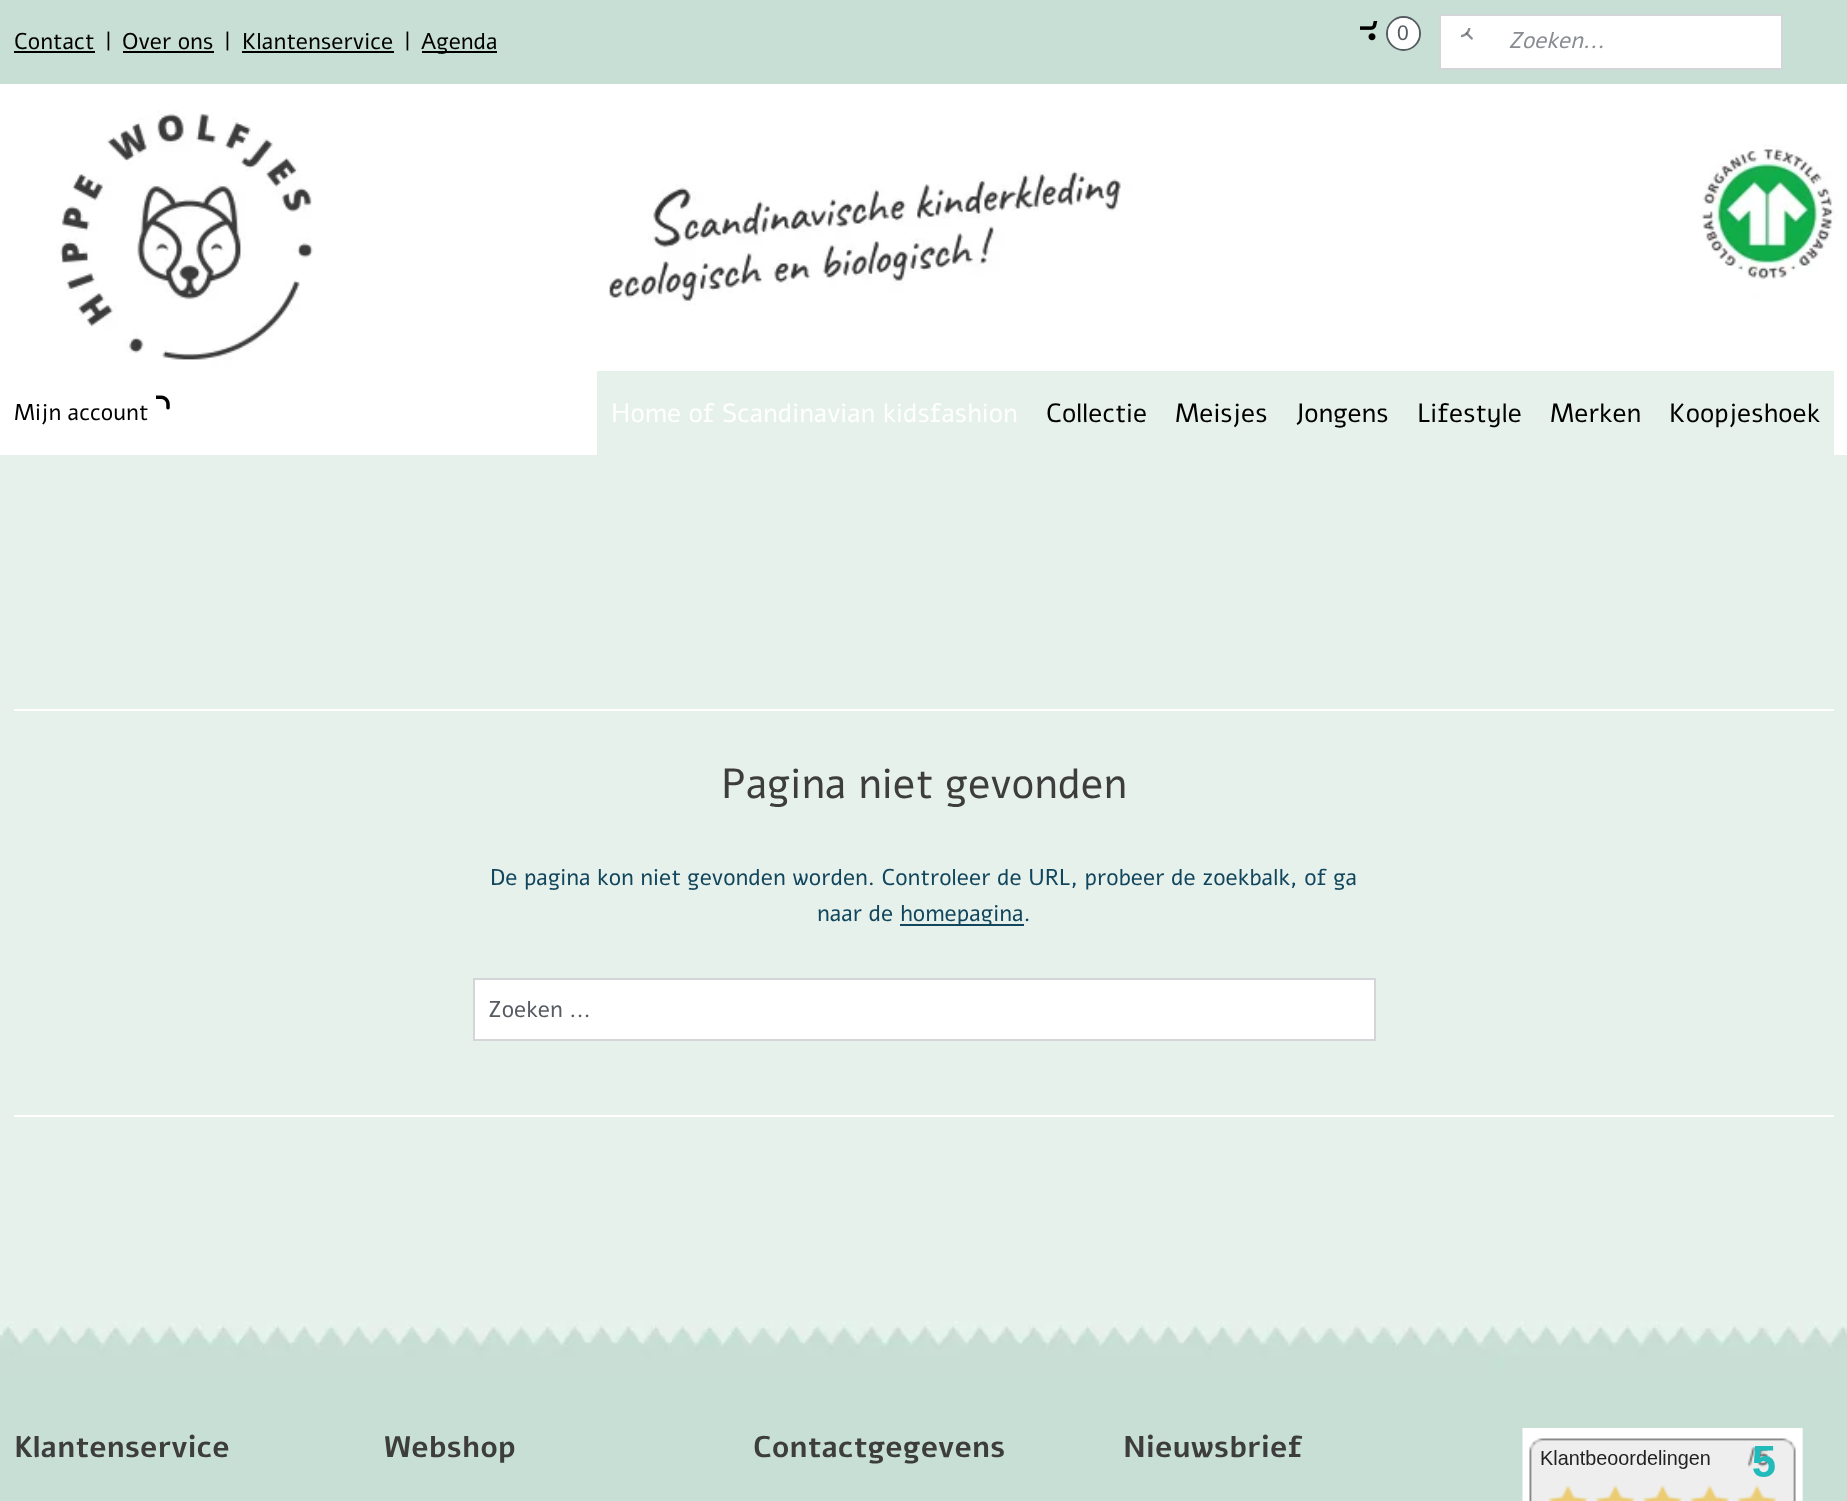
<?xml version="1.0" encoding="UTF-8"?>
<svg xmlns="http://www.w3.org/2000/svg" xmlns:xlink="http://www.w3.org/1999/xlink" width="1847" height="1501">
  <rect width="100%" height="100%" fill="#c8dfd5" />
  <rect y="455" width="1847" height="866" fill="#e6f1ec" />
  <image x="0" y="1321" width="1847" height="49" xlink:href="image1.png" />
  <rect x="14" y="51" width="81" height="2" fill="#000000" />
  <rect x="123" y="51" width="91" height="2" fill="#000000" />
  <rect x="242" y="51" width="152" height="2" fill="#000000" />
  <rect x="422" y="51" width="75" height="2" fill="#000000" />
  <image x="1360" y="21" width="18" height="20" xlink:href="image2.png" />
  <circle cx="1403.5" cy="33.5" r="16.5" fill="none" stroke="#575b62" stroke-width="2" />
  <circle cx="1403.5" cy="33.5" r="15.5" fill="#ffffff" />
  <rect x="1440" y="15" width="342" height="54" fill="#ffffff" stroke="#d3d5d9" stroke-width="2" />
  <image x="1461" y="28" width="12" height="12" xlink:href="image3.png" />
  <image x="0" y="84" width="1847" height="287" xlink:href="image4.png" />
  <rect y="371" width="1847" height="84" fill="#ffffff" />
  <image x="156" y="395" width="14" height="15" xlink:href="image5.png" />
  <rect x="597" y="371" width="684" height="84" fill="#e6f1ec" />
  <rect x="1281" y="371" width="553" height="84" fill="#e6f1ec" />
  <rect x="14" y="709" width="1820" height="2" fill="#ffffff" />
  <rect x="14" y="1115" width="1820" height="2" fill="#ffffff" />
  <rect x="900" y="924" width="124" height="2" fill="#12465c" />
  <rect x="474" y="979" width="901" height="61" fill="#ffffff" stroke="#d3d5d9" stroke-width="2" />
  <image x="1522" y="1428" width="281" height="73" xlink:href="image6.png" />
  <text x="14" y="49" style="font-family: Alef; font-size: 22.75px; fill: #000000">Contact</text>
  <text x="105" y="49" style="font-family: Alef; font-size: 22.75px; fill: #000000">|</text>
  <text x="122" y="49" style="font-family: Alef; font-size: 22.75px; fill: #000000">Over ons</text>
  <text x="224" y="49" style="font-family: Alef; font-size: 22.75px; fill: #000000">|</text>
  <text x="242" y="49" style="font-family: Alef; font-size: 22.75px; fill: #000000">Klantenservice</text>
  <text x="404" y="49" style="font-family: Alef; font-size: 22.75px; fill: #000000">|</text>
  <text x="421" y="49" style="font-family: Alef; font-size: 22.75px; fill: #000000">Agenda</text>
  <text x="1397" y="40" style="font-family: Liberation Sans; font-size: 21px; fill: #575b62">0</text>
  <text x="1508" y="48" style="font-family: Alef; font-size: 22.75px; font-style: italic; fill: #898c91">Zoeken...</text>
  <text x="14" y="420" style="font-family: Alef; font-size: 22.75px; fill: #000000">Mijn account</text>
  <text x="611" y="422" style="font-family: Alef; font-size: 26.25px; fill: #ffffff">Home of Scandinavian kidsfashion</text>
  <text x="1046" y="422" style="font-family: Alef; font-size: 26.25px; fill: #000000">Collectie</text>
  <text x="1175" y="422" style="font-family: Alef; font-size: 26.25px; fill: #000000">Meisjes</text>
  <text x="1295" y="422" style="font-family: Alef; font-size: 26.25px; fill: #000000">Jongens</text>
  <text x="1417" y="422" style="font-family: Alef; font-size: 26.25px; fill: #000000">Lifestyle</text>
  <text x="1550" y="422" style="font-family: Alef; font-size: 26.25px; fill: #000000">Merken</text>
  <text x="1669" y="422" style="font-family: Alef; font-size: 26.25px; fill: #000000">Koopjeshoek</text>
  <text x="721" y="798" style="font-family: Alef; font-size: 42px; fill: #3d3d3d">Pagina niet gevonden</text>
  <text x="490" y="885" style="font-family: Alef; font-size: 22.75px; fill: #12465c">De pagina kon niet gevonden worden. Controleer de URL, probeer de zoekbalk, of ga</text>
  <text x="817" y="921" style="font-family: Alef; font-size: 22.75px; fill: #12465c">naar de</text>
  <text x="900" y="921" style="font-family: Alef; font-size: 22.75px; fill: #12465c">homepagina.</text>
  <text x="488" y="1017" style="font-family: Alef; font-size: 22.75px; fill: #575b62">Zoeken ...</text>
  <text x="14" y="1457" style="font-family: Alef; font-size: 29.75px; font-weight: bold; fill: #3d3d3d">Klantenservice</text>
  <text x="384" y="1457" style="font-family: Alef; font-size: 29.75px; font-weight: bold; fill: #3d3d3d">Webshop</text>
  <text x="753" y="1457" style="font-family: Alef; font-size: 29.75px; font-weight: bold; fill: #3d3d3d">Contactgegevens</text>
  <text x="1123" y="1457" style="font-family: Alef; font-size: 29.75px; font-weight: bold; fill: #3d3d3d">Nieuwsbrief</text>
</svg>
